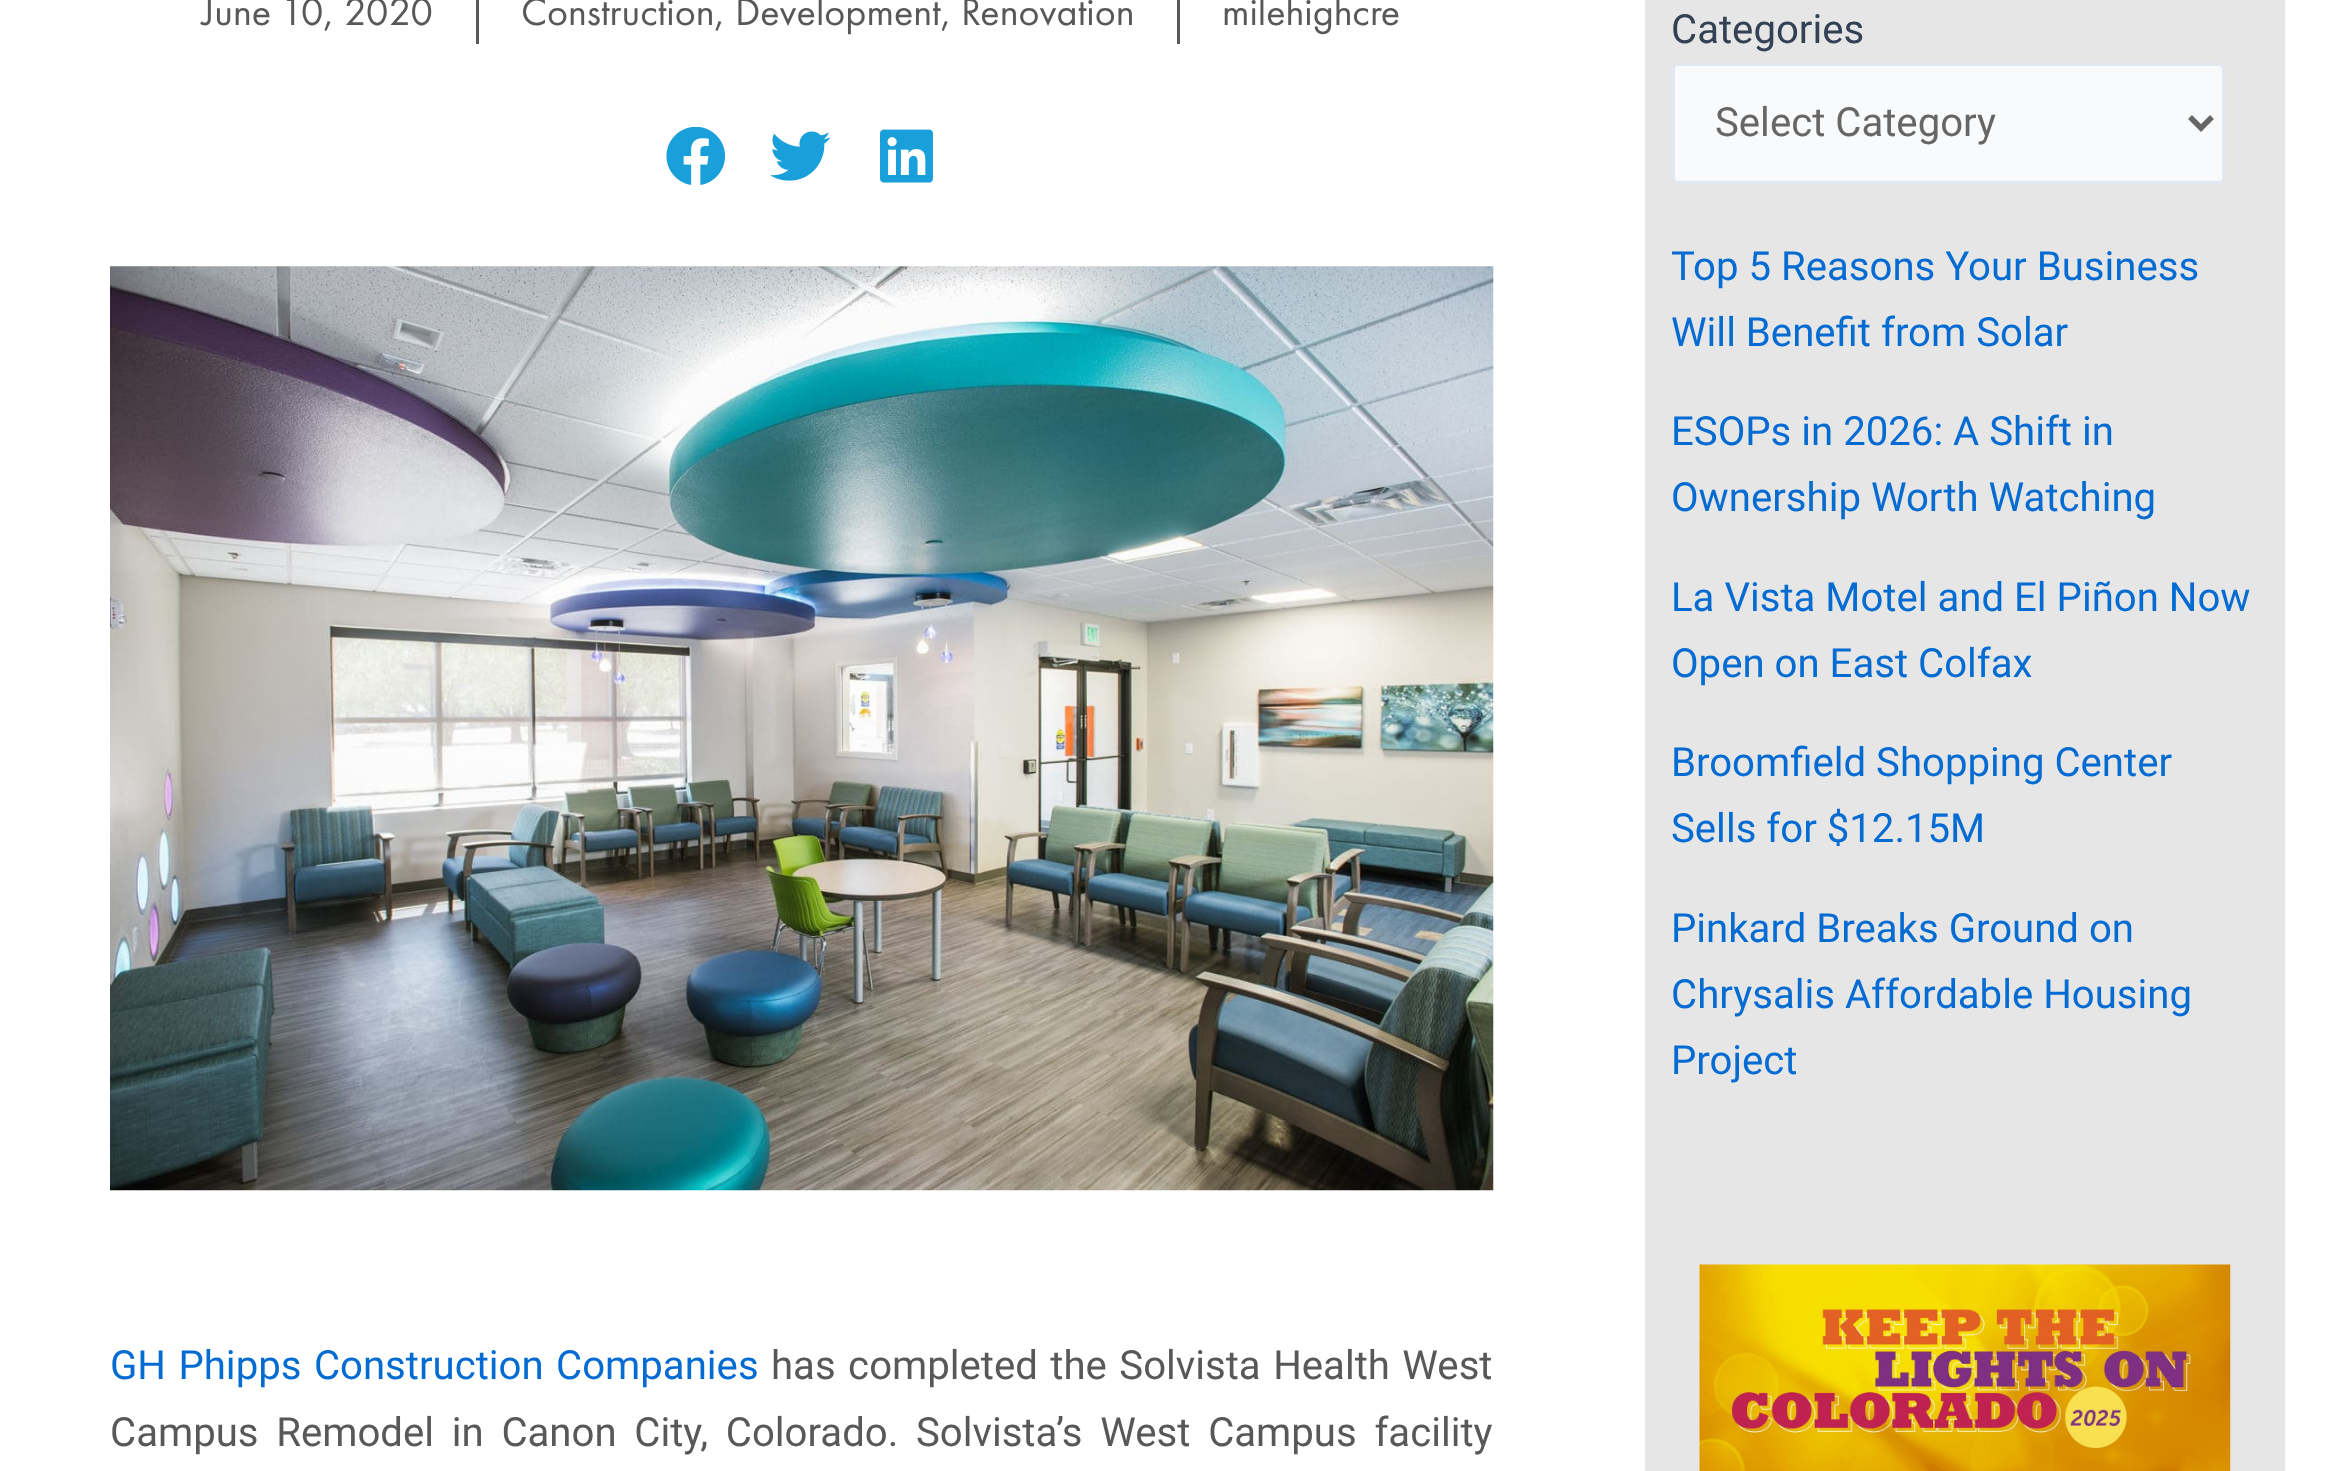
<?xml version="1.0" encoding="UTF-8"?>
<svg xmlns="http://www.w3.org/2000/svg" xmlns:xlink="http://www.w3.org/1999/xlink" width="2340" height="1471">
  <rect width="100%" height="100%" fill="#ffffff" />
  <rect x="476" width="3" height="44" fill="#58585a" />
  <rect x="1177" width="3" height="44" fill="#58585a" />
  <image x="666" y="127" width="60" height="58" xlink:href="image1.png" />
  <image x="770" y="131" width="61" height="50" xlink:href="image2.png" />
  <image x="880" y="129" width="53" height="54" xlink:href="image3.png" />
  <image x="110" y="266" width="1384" height="925" xlink:href="image4.png" />
  <rect x="1645" width="640" height="1471" fill="#e6e6e6" />
  <rect x="1673.5" y="64.5" width="550" height="118" rx="4.5" fill="#f9fafb" stroke="#e2e8f0" stroke-width="3" />
  <path d="M 2190 117 l 11 11 l 11 -11" fill="none" stroke="#666666" stroke-width="5.5" />
  <image x="1699" y="1264" width="532" height="207" xlink:href="image5.png" />
  <text x="202" y="25" style="font-family: Futura PT; font-size: 40.15px; fill: #58585a">June 10, 2020</text>
  <text x="521" y="25" style="font-family: Futura PT; font-size: 40.15px; fill: #58585a">Construction, Development, Renovation</text>
  <text x="1222" y="25" style="font-family: Futura PT; font-size: 40.15px; fill: #58585a">milehighcre</text>
  <text x="110" y="1379" word-spacing="2.5" style="font-family: Roboto; font-size: 40.15px; fill: #046bd2">GH Phipps Construction Companies</text>
  <text x="771" y="1379" word-spacing="2.5" style="font-family: Roboto; font-size: 40.15px; fill: #58585a">has completed the Solvista Health West</text>
  <text x="110" y="1446" word-spacing="7.75" style="font-family: Roboto; font-size: 40.15px; fill: #58585a">Campus Remodel in Canon City, Colorado. Solvista’s West Campus facility</text>
  <text x="1671" y="43" style="font-family: Roboto; font-size: 40.15px; fill: #334155">Categories</text>
  <text x="1715" y="136" style="font-family: Roboto; font-size: 40.15px; fill: #666666">Select Category</text>
  <text x="1671" y="280" style="font-family: Roboto; font-size: 40.15px; fill: #046bd2">Top 5 Reasons Your Business</text>
  <text x="1671" y="346" style="font-family: Roboto; font-size: 40.15px; fill: #046bd2">Will Benefit from Solar</text>
  <text x="1671" y="445" style="font-family: Roboto; font-size: 40.15px; fill: #046bd2">ESOPs in 2026: A Shift in</text>
  <text x="1671" y="511" style="font-family: Roboto; font-size: 40.15px; fill: #046bd2">Ownership Worth Watching</text>
  <text x="1671" y="611" style="font-family: Roboto; font-size: 40.15px; fill: #046bd2">La Vista Motel and El Piñon Now</text>
  <text x="1671" y="677" style="font-family: Roboto; font-size: 40.15px; fill: #046bd2">Open on East Colfax</text>
  <text x="1671" y="776" style="font-family: Roboto; font-size: 40.15px; fill: #046bd2">Broomfield Shopping Center</text>
  <text x="1671" y="842" style="font-family: Roboto; font-size: 40.15px; fill: #046bd2">Sells for $12.15M</text>
  <text x="1671" y="942" style="font-family: Roboto; font-size: 40.15px; fill: #046bd2">Pinkard Breaks Ground on</text>
  <text x="1671" y="1008" style="font-family: Roboto; font-size: 40.15px; fill: #046bd2">Chrysalis Affordable Housing</text>
  <text x="1671" y="1074" style="font-family: Roboto; font-size: 40.15px; fill: #046bd2">Project</text>
</svg>
